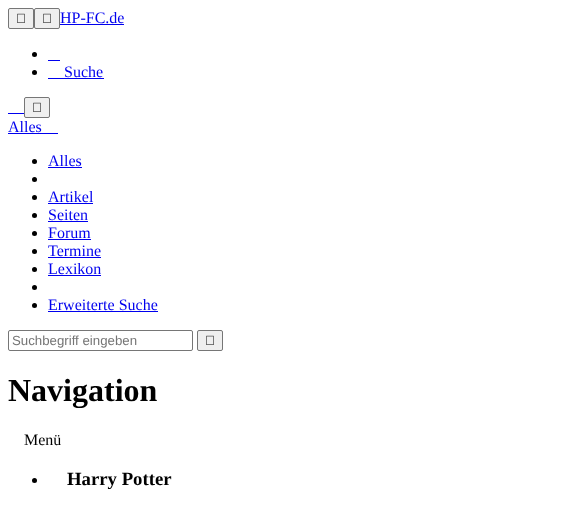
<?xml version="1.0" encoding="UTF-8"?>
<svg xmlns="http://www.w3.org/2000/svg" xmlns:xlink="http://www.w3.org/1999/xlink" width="582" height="510">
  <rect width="100%" height="100%" fill="#ffffff" />
  <rect x="8.5" y="8.5" width="25" height="20" rx="1.5" fill="#efefef" stroke="#767676" />
  <image x="17" y="13" width="8" height="10" xlink:href="image1.png" />
  <rect x="34.5" y="8.5" width="25" height="20" rx="1.5" fill="#efefef" stroke="#767676" />
  <image x="43" y="13" width="8" height="10" xlink:href="image1.png" />
  <rect x="60" y="24" width="64" height="1" fill="#0000ee" />
  <circle cx="34.5" cy="54.5" r="2.5" fill="#000000" />
  <rect x="48" y="60" width="12" height="1" fill="#0000ee" />
  <circle cx="34.5" cy="72.5" r="2.5" fill="#000000" />
  <rect x="48" y="78" width="56" height="1" fill="#0000ee" />
  <rect x="8" y="113" width="16" height="1" fill="#0000ee" />
  <rect x="24.5" y="97.5" width="25" height="20" rx="1.5" fill="#efefef" stroke="#767676" />
  <image x="33" y="102" width="8" height="10" xlink:href="image1.png" />
  <rect x="8" y="133" width="50" height="1" fill="#0000ee" />
  <circle cx="34.5" cy="161.5" r="2.5" fill="#000000" />
  <rect x="48" y="167" width="34" height="1" fill="#0000ee" />
  <circle cx="34.5" cy="179.5" r="2.5" fill="#000000" />
  <circle cx="34.5" cy="197.5" r="2.5" fill="#000000" />
  <rect x="48" y="203" width="45" height="1" fill="#0000ee" />
  <circle cx="34.5" cy="215.5" r="2.5" fill="#000000" />
  <rect x="48" y="221" width="40" height="1" fill="#0000ee" />
  <circle cx="34.5" cy="233.5" r="2.5" fill="#000000" />
  <rect x="48" y="239" width="43" height="1" fill="#0000ee" />
  <circle cx="34.5" cy="251.5" r="2.5" fill="#000000" />
  <rect x="48" y="257" width="53" height="1" fill="#0000ee" />
  <circle cx="34.5" cy="269.5" r="2.5" fill="#000000" />
  <rect x="48" y="275" width="53" height="1" fill="#0000ee" />
  <circle cx="34.5" cy="287.5" r="2.5" fill="#000000" />
  <circle cx="34.5" cy="305.5" r="2.5" fill="#000000" />
  <rect x="48" y="311" width="110" height="1" fill="#0000ee" />
  <rect x="8.5" y="330.5" width="184" height="20" rx="1.5" fill="none" stroke="#767676" />
  <rect x="197.5" y="330.5" width="25" height="20" rx="1.5" fill="#efefef" stroke="#767676" />
  <image x="206" y="335" width="8" height="10" xlink:href="image1.png" />
  <circle cx="34.5" cy="480.5" r="2.5" fill="#000000" />
  <text x="60" y="23" style="font-family: Liberation Serif; font-size: 16px; fill: #0000ee">HP-FC.de</text>
  <text x="64" y="77" style="font-family: Liberation Serif; font-size: 16px; fill: #0000ee">Suche</text>
  <text x="8" y="132" style="font-family: Liberation Serif; font-size: 16px; fill: #0000ee">Alles</text>
  <text x="48" y="166" style="font-family: Liberation Serif; font-size: 16px; fill: #0000ee">Alles</text>
  <text x="48" y="202" style="font-family: Liberation Serif; font-size: 16px; fill: #0000ee">Artikel</text>
  <text x="48" y="220" style="font-family: Liberation Serif; font-size: 16px; fill: #0000ee">Seiten</text>
  <text x="48" y="238" style="font-family: Liberation Serif; font-size: 16px; fill: #0000ee">Forum</text>
  <text x="48" y="256" style="font-family: Liberation Serif; font-size: 16px; fill: #0000ee">Termine</text>
  <text x="48" y="274" style="font-family: Liberation Serif; font-size: 16px; fill: #0000ee">Lexikon</text>
  <text x="48" y="310" style="font-family: Liberation Serif; font-size: 16px; fill: #0000ee">Erweiterte Suche</text>
  <text x="12" y="345" style="font-family: Liberation Sans; font-size: 13.25px; fill: #757575">Suchbegriff eingeben</text>
  <text x="8" y="401" style="font-family: Liberation Serif; font-size: 32px; font-weight: bold; fill: #000000">Navigation</text>
  <text x="24" y="445" style="font-family: Liberation Serif; font-size: 16px; fill: #000000">Menü</text>
  <text x="67" y="485" style="font-family: Liberation Serif; font-size: 18.75px; font-weight: bold; fill: #000000">Harry Potter</text>
</svg>
